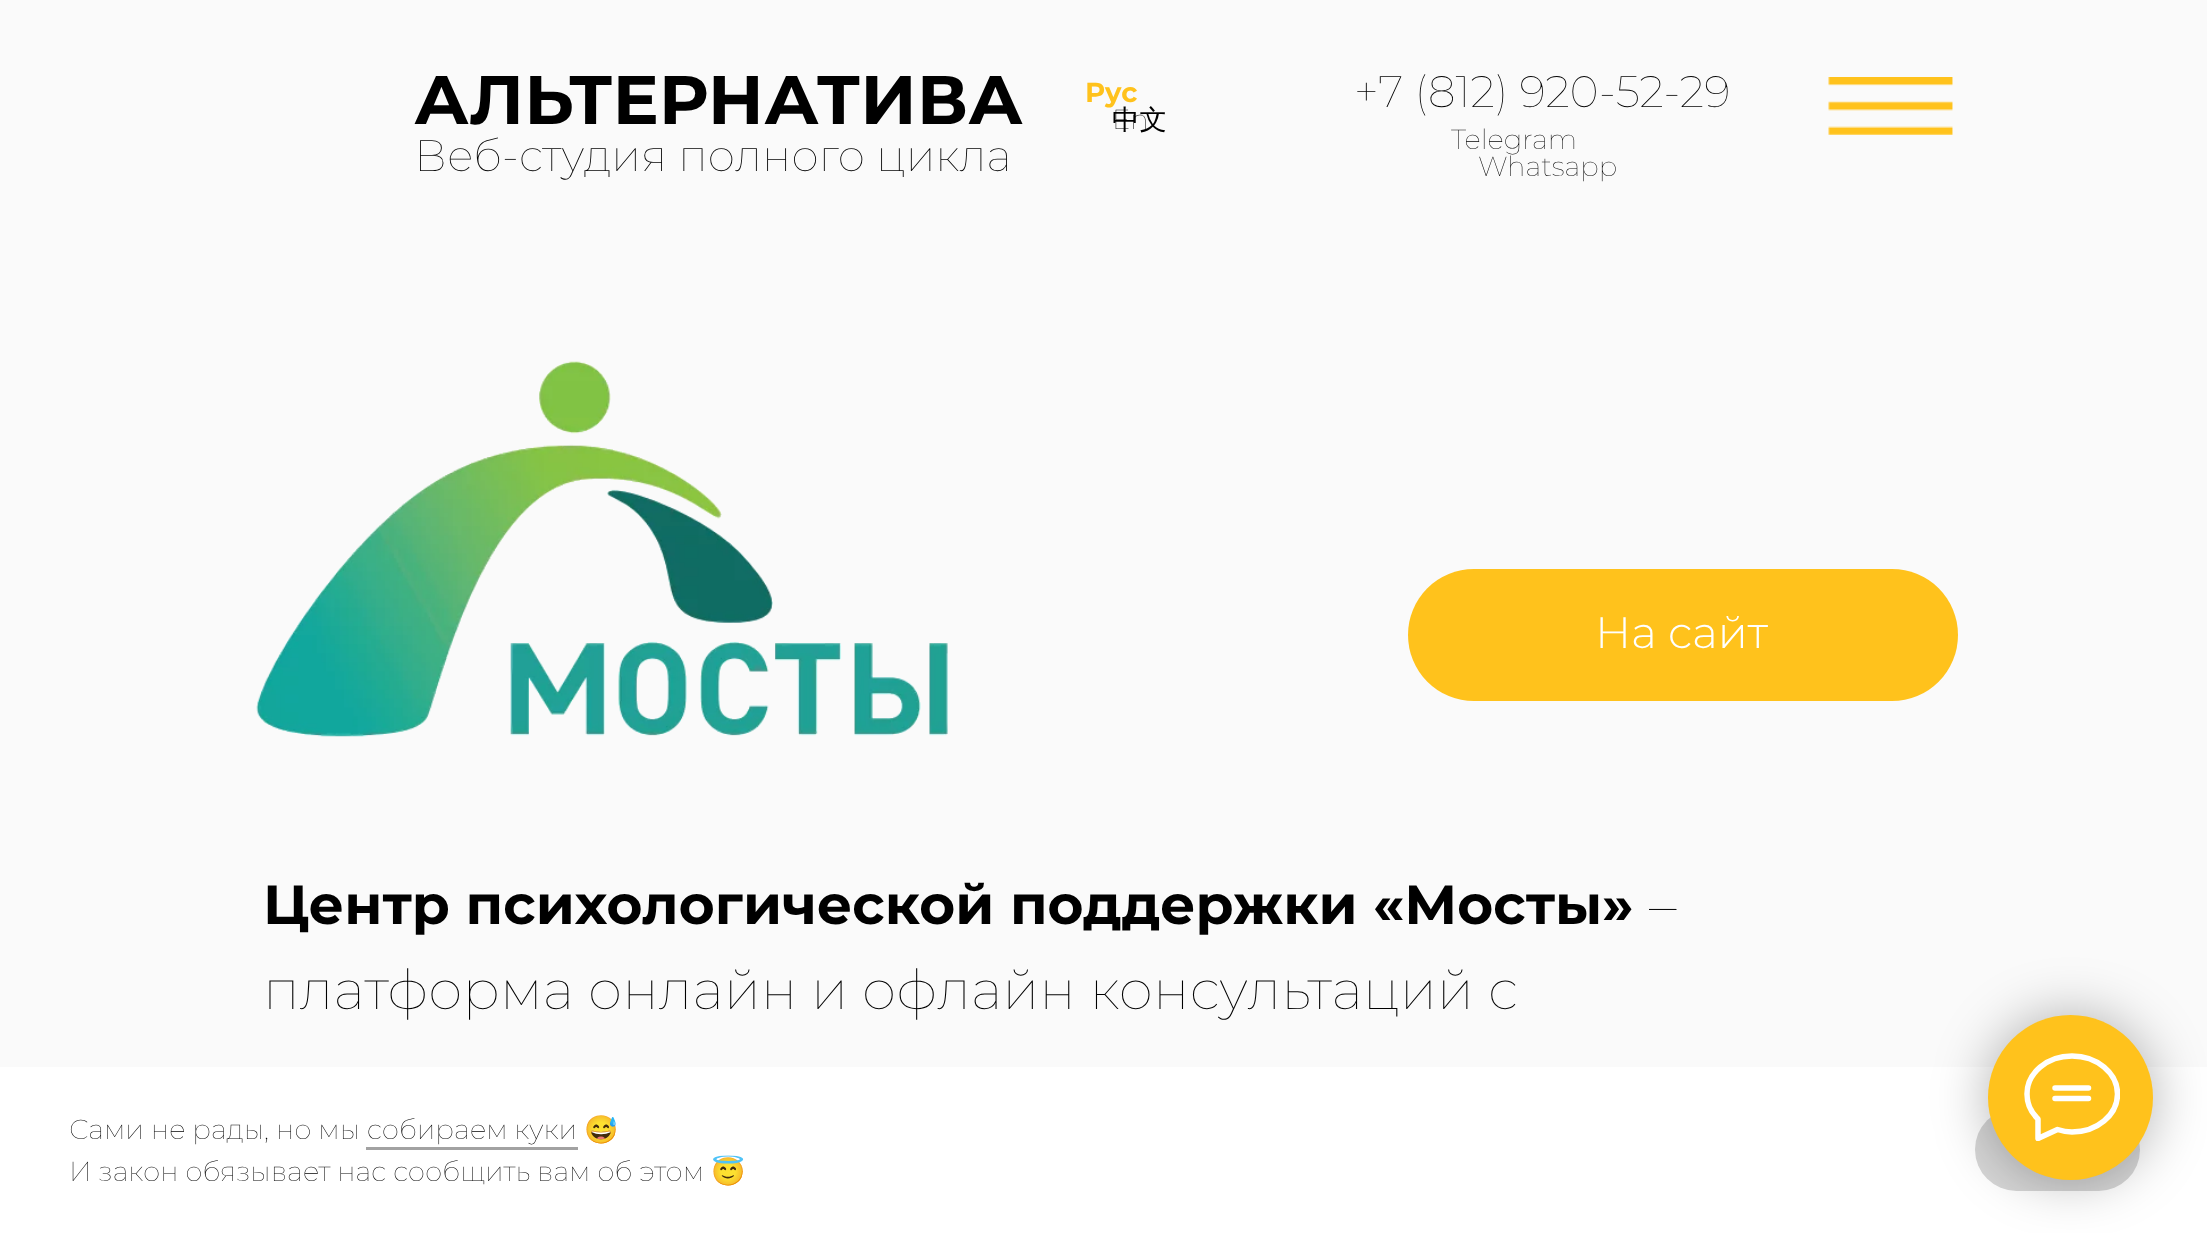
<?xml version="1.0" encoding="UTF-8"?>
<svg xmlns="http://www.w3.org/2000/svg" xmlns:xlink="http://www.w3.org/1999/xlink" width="2207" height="1233">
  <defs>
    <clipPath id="clip1"><rect x="2024" y="1053" width="96" height="88" /></clipPath>
  </defs>
  <rect width="100%" height="100%" fill="#fafafa" />
  <image x="1828" y="77" width="125" height="58" xlink:href="image1.png" />
  <image x="256" y="361" width="692" height="376" xlink:href="image2.png" />
  <rect x="1408" y="569" width="550" height="132" rx="66" fill="#ffc21c" />
  <rect y="1067" width="2207" height="166" fill="#ffffff" />
  <rect x="366" y="1147" width="212" height="3" fill="#a2a2a2" />
  <rect x="1975" y="1108" width="165" height="83" rx="41.5" fill="#d6d6d6" />
  <rect x="1988" y="1015" width="165" height="165" rx="82.5" fill="#000000" fill-opacity="0.3" filter="blur(27.5px)" />
  <circle cx="2070.5" cy="1097.5" r="82.5" fill="#ffc21c" />
  <g clip-path="url(#clip1)">
    <path d="M 2055 1088 h 33.5 m -33.5 10.5 h 33.5 m -51.5 19.5 c -6.5 -6.5 -10 -15 -10 -24 c 0 -21 20 -38 45 -38 c 25 0 45.5 17 45.5 38 c 0 21 -20.5 38 -45.5 38 c -5 0 -10 -1 -14.5 -2.5 l -19.5 9 v -19.5 z" fill="none" stroke="#ffffff" stroke-width="5.5" stroke-linecap="round" stroke-linejoin="round" />
  </g>
  <text x="414" y="124" style="font-family: Montserrat; font-size: 68.75px; font-weight: bold; fill: #000000">АЛЬТЕРНАТИВА</text>
  <text x="1085" y="102" style="font-family: Montserrat; font-size: 27.5px; font-weight: bold; fill: #ffc21c">Рус</text>
  <text x="1354" y="107" style="font-family: Montserrat; font-size: 44px; font-weight: 100; fill: #000000">+7 (812) 920-52-29</text>
  <text x="1112" y="129" style="font-family: Montserrat; font-size: 27.5px; font-weight: 100; fill: #000000">En</text>
  <text x="1112" y="129" style="font-family: WenQuanYi Zen Hei; font-size: 27.5px; font-weight: 500; fill: #000000">中文</text>
  <text x="414" y="171" style="font-family: Montserrat; font-size: 44px; font-weight: 100; fill: #000000">Веб-студия полного цикла</text>
  <text x="1451" y="149" style="font-family: Montserrat; font-size: 27.5px; font-weight: 100; fill: #000000">Telegram</text>
  <text x="1478" y="176" style="font-family: Montserrat; font-size: 27.5px; font-weight: 100; fill: #000000">Whatsapp</text>
  <text x="1595" y="648" style="font-family: Montserrat; font-size: 44px; font-weight: 300; fill: #ffffff">На сайт</text>
  <text x="263" y="924" style="font-family: Montserrat; font-size: 55px; font-weight: bold; fill: #000000">Центр психологической поддержки «Мосты»</text>
  <text x="1649" y="924" style="font-family: Montserrat; font-size: 55px; font-weight: 100; fill: #000000">–</text>
  <text x="263" y="1009" style="font-family: Montserrat; font-size: 55px; font-weight: 100; fill: #000000">платформа онлайн и офлайн консультаций с</text>
  <text x="69" y="1139" style="font-family: Montserrat; font-size: 27.5px; font-weight: 100; fill: #000000">Сами не рады, но мы собираем куки</text>
  <text x="584" y="1139" style="font-family: Noto Color Emoji; font-size: 27.5px; fill: #000000">😅</text>
  <text x="69" y="1181" style="font-family: Montserrat; font-size: 27.5px; font-weight: 100; fill: #000000">И закон обязывает нас сообщить вам об этом</text>
  <text x="711" y="1181" style="font-family: Noto Color Emoji; font-size: 27.5px; fill: #000000">😇</text>
</svg>
